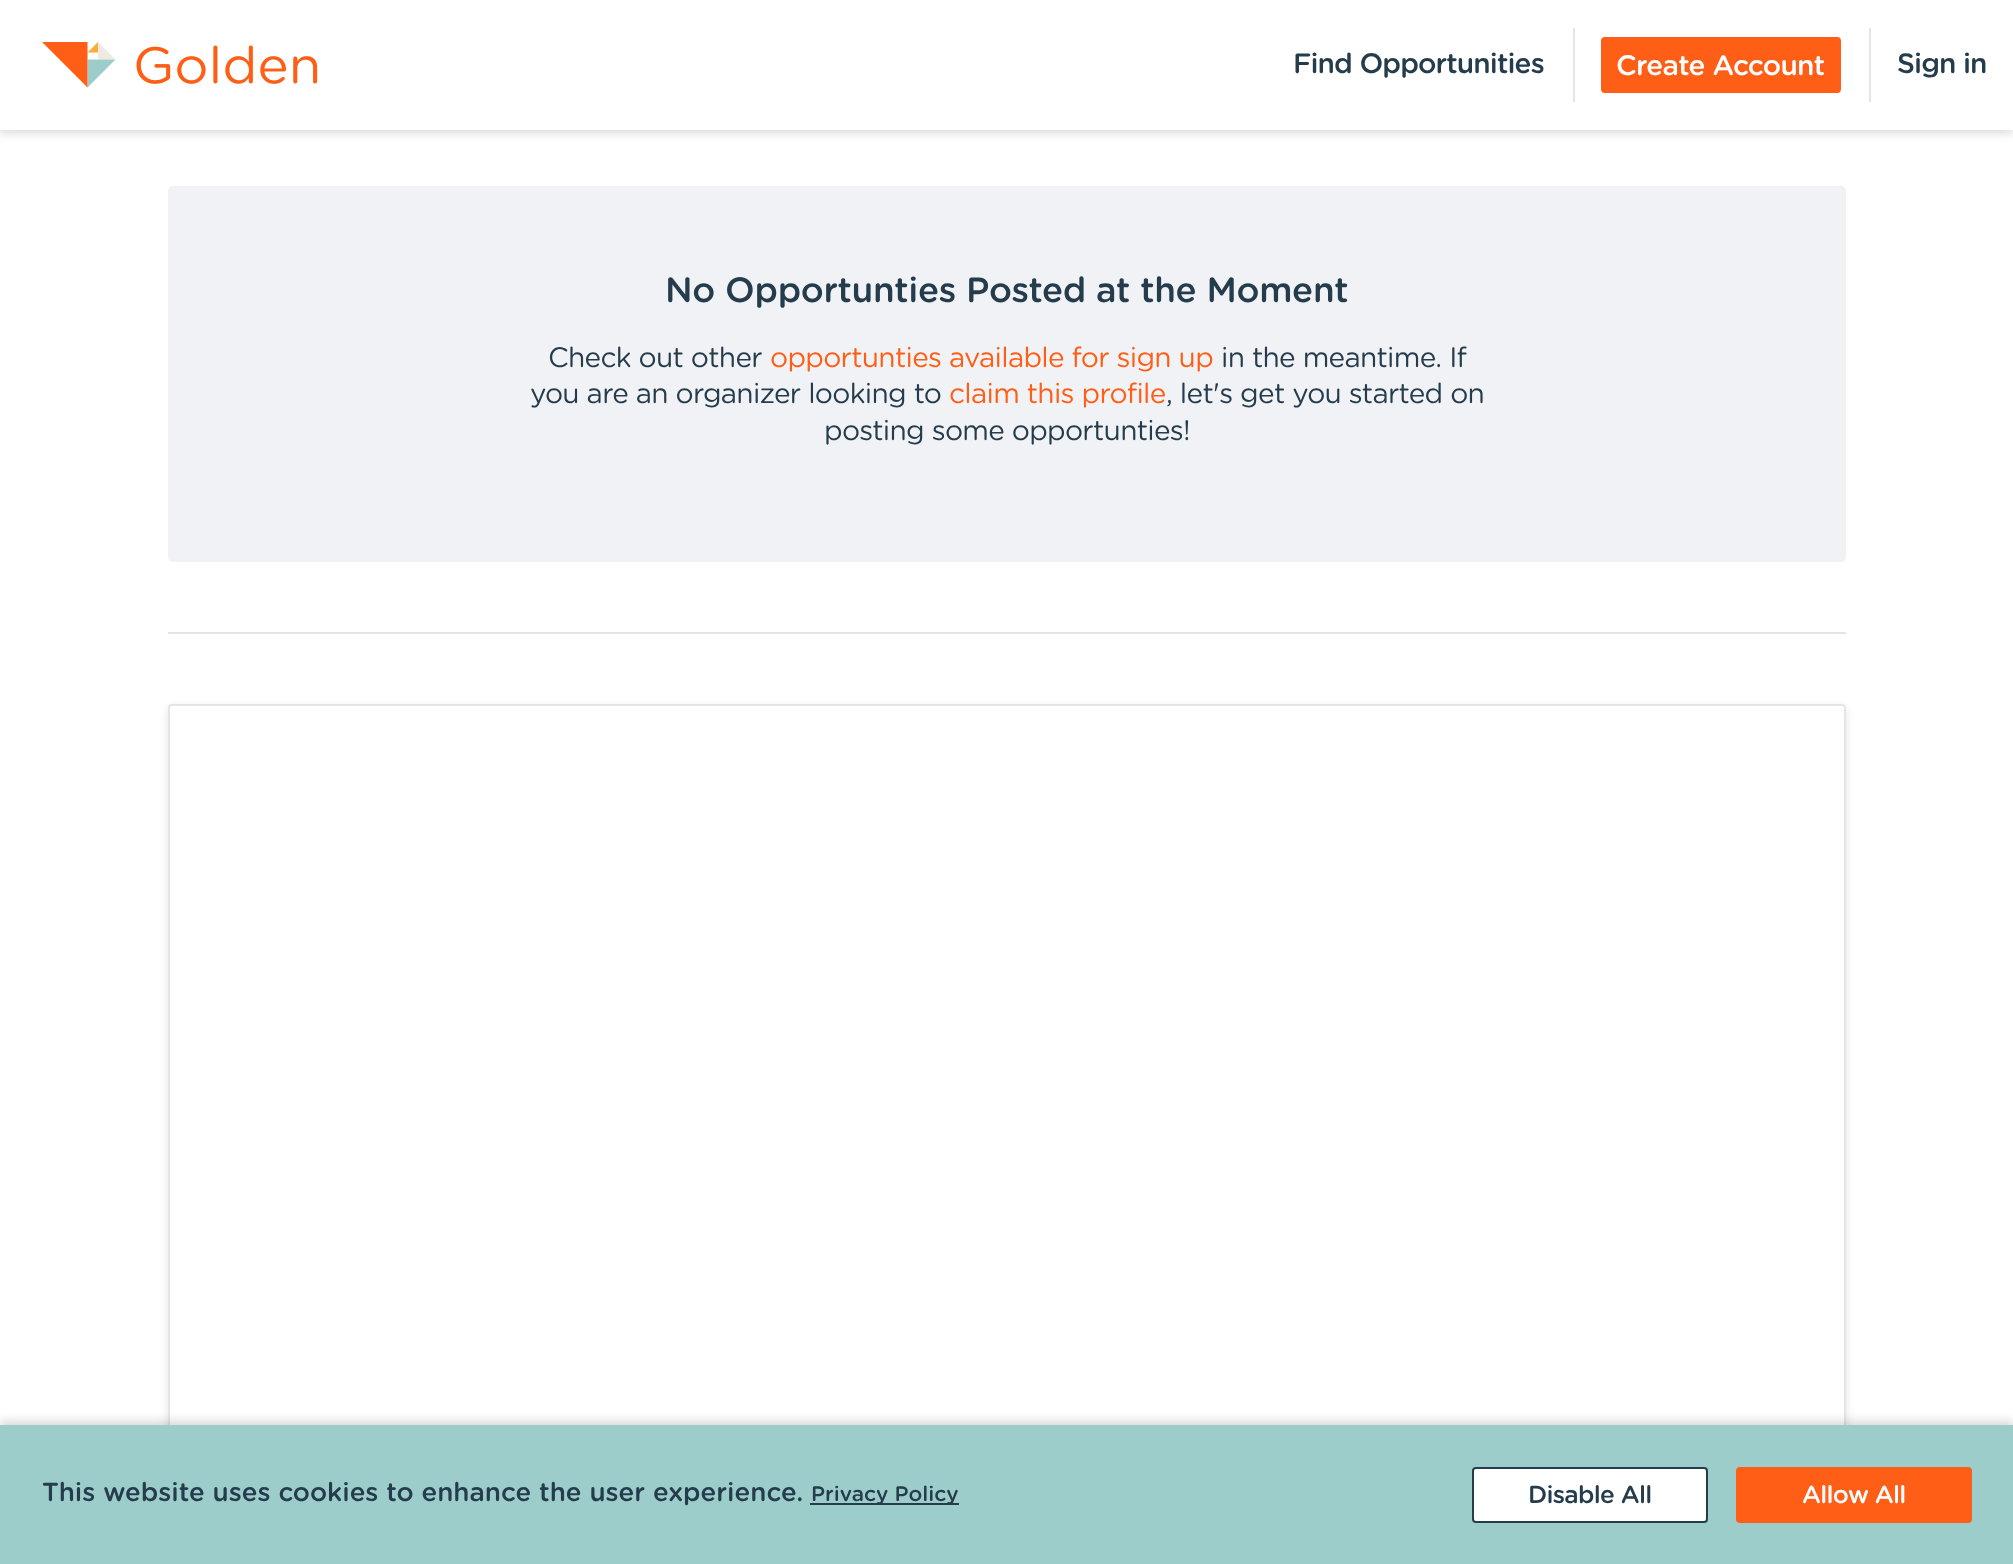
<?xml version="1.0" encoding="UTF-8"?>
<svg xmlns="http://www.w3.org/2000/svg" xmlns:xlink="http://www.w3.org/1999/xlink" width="2013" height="1564">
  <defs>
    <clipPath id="clip1"><path d="M 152 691 h 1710 v 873 h -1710 z m 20 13 h 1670 c 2 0 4 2 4 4 v 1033 c 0 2 -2 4 -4 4 h -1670 c -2 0 -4 -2 -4 -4 v -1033 c 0 -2 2 -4 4 -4 z" clip-rule="evenodd" /></clipPath>
  </defs>
  <rect width="100%" height="100%" fill="#ffffff" />
  <rect y="4" width="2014" height="129" fill="#000000" fill-opacity="0.15" filter="blur(5px)" />
  <rect width="2013" height="130" fill="#ffffff" />
  <image x="42" y="42" width="276" height="46" xlink:href="image1.png" />
  <rect x="1573" y="28" width="2" height="74" fill="#e5e5e5" />
  <rect x="1602" y="38" width="238" height="54" rx="3" fill="#fe5e16" stroke="#fe5e16" stroke-width="2" />
  <rect x="1869" y="28" width="2" height="74" fill="#e5e5e5" />
  <rect x="168" y="186" width="1678" height="376" rx="5" fill="#f1f2f5" />
  <rect x="168" y="632" width="1678" height="2" fill="#e5e5e5" />
  <g clip-path="url(#clip1)">
    <rect x="168" y="707" width="1678" height="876" rx="4" fill="#000000" fill-opacity="0.1" filter="blur(5px)" />
  </g>
  <rect x="169" y="705" width="1676" height="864" rx="3" fill="none" stroke="#e5e5e5" stroke-width="2" />
  <rect y="1421" width="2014" height="140" fill="#000000" fill-opacity="0.15" filter="blur(5px)" />
  <rect y="1425" width="2013" height="139" fill="#9dcdcb" />
  <rect x="810" y="1503" width="149" height="2" fill="#243c4b" />
  <rect x="1473" y="1468" width="234" height="54" rx="3" fill="#ffffff" stroke="#243c4b" stroke-width="2" />
  <rect x="1737" y="1468" width="234" height="54" rx="3" fill="#fe5e16" stroke="#fe5e16" stroke-width="2" />
  <text x="1293" y="73" style="font-family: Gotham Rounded; font-size: 28px; font-weight: 500; letter-spacing: -0.9px; fill: #243c4b">Find Opportunities</text>
  <text x="1616" y="75" style="font-family: Gotham Rounded; font-size: 28px; font-weight: 500; letter-spacing: -0.7px; fill: #ffffff">Create Account</text>
  <text x="1897" y="73" style="font-family: Gotham Rounded; font-size: 28px; font-weight: 500; letter-spacing: -0.9px; fill: #243c4b">Sign in</text>
  <text x="665" y="302" style="font-family: Gotham Rounded; font-size: 35px; font-weight: 500; letter-spacing: -0.35px; fill: #243c4b">No Opportunties Posted at the Moment</text>
  <text x="548" y="367" style="font-family: Gotham Rounded; font-size: 28px; letter-spacing: -0.7px; fill: #243c4b">Check out other</text>
  <text x="770" y="367" style="font-family: Gotham Rounded; font-size: 28px; letter-spacing: -0.7px; fill: #fe5e16">opportunties available for sign up</text>
  <text x="1221" y="367" style="font-family: Gotham Rounded; font-size: 28px; letter-spacing: -0.7px; fill: #243c4b">in the meantime. If</text>
  <text x="530" y="403" style="font-family: Gotham Rounded; font-size: 28px; letter-spacing: -0.7px; fill: #243c4b">you are an organizer looking to</text>
  <text x="949" y="403" style="font-family: Gotham Rounded; font-size: 28px; letter-spacing: -0.7px; fill: #fe5e16">claim this profile</text>
  <text x="1166" y="403" style="font-family: Gotham Rounded; font-size: 28px; letter-spacing: -0.7px; fill: #243c4b">, let's get you started on</text>
  <text x="824" y="440" style="font-family: Gotham Rounded; font-size: 28px; letter-spacing: -0.7px; fill: #243c4b">posting some opportunties!</text>
  <text x="42" y="1501" style="font-family: Gotham Rounded; font-size: 26.05px; font-weight: 500; fill: #243c4b">This website uses cookies to enhance the user experience.</text>
  <text x="811" y="1501" style="font-family: Gotham Rounded; font-size: 21px; font-weight: 500; fill: #243c4b">Privacy Policy</text>
  <text x="1528" y="1503" style="font-family: Gotham Rounded; font-size: 24.5px; font-weight: 500; letter-spacing: -0.7px; fill: #243c4b">Disable All</text>
  <text x="1802" y="1503" style="font-family: Gotham Rounded; font-size: 24.5px; font-weight: 500; letter-spacing: -0.7px; fill: #ffffff">Allow All</text>
</svg>
